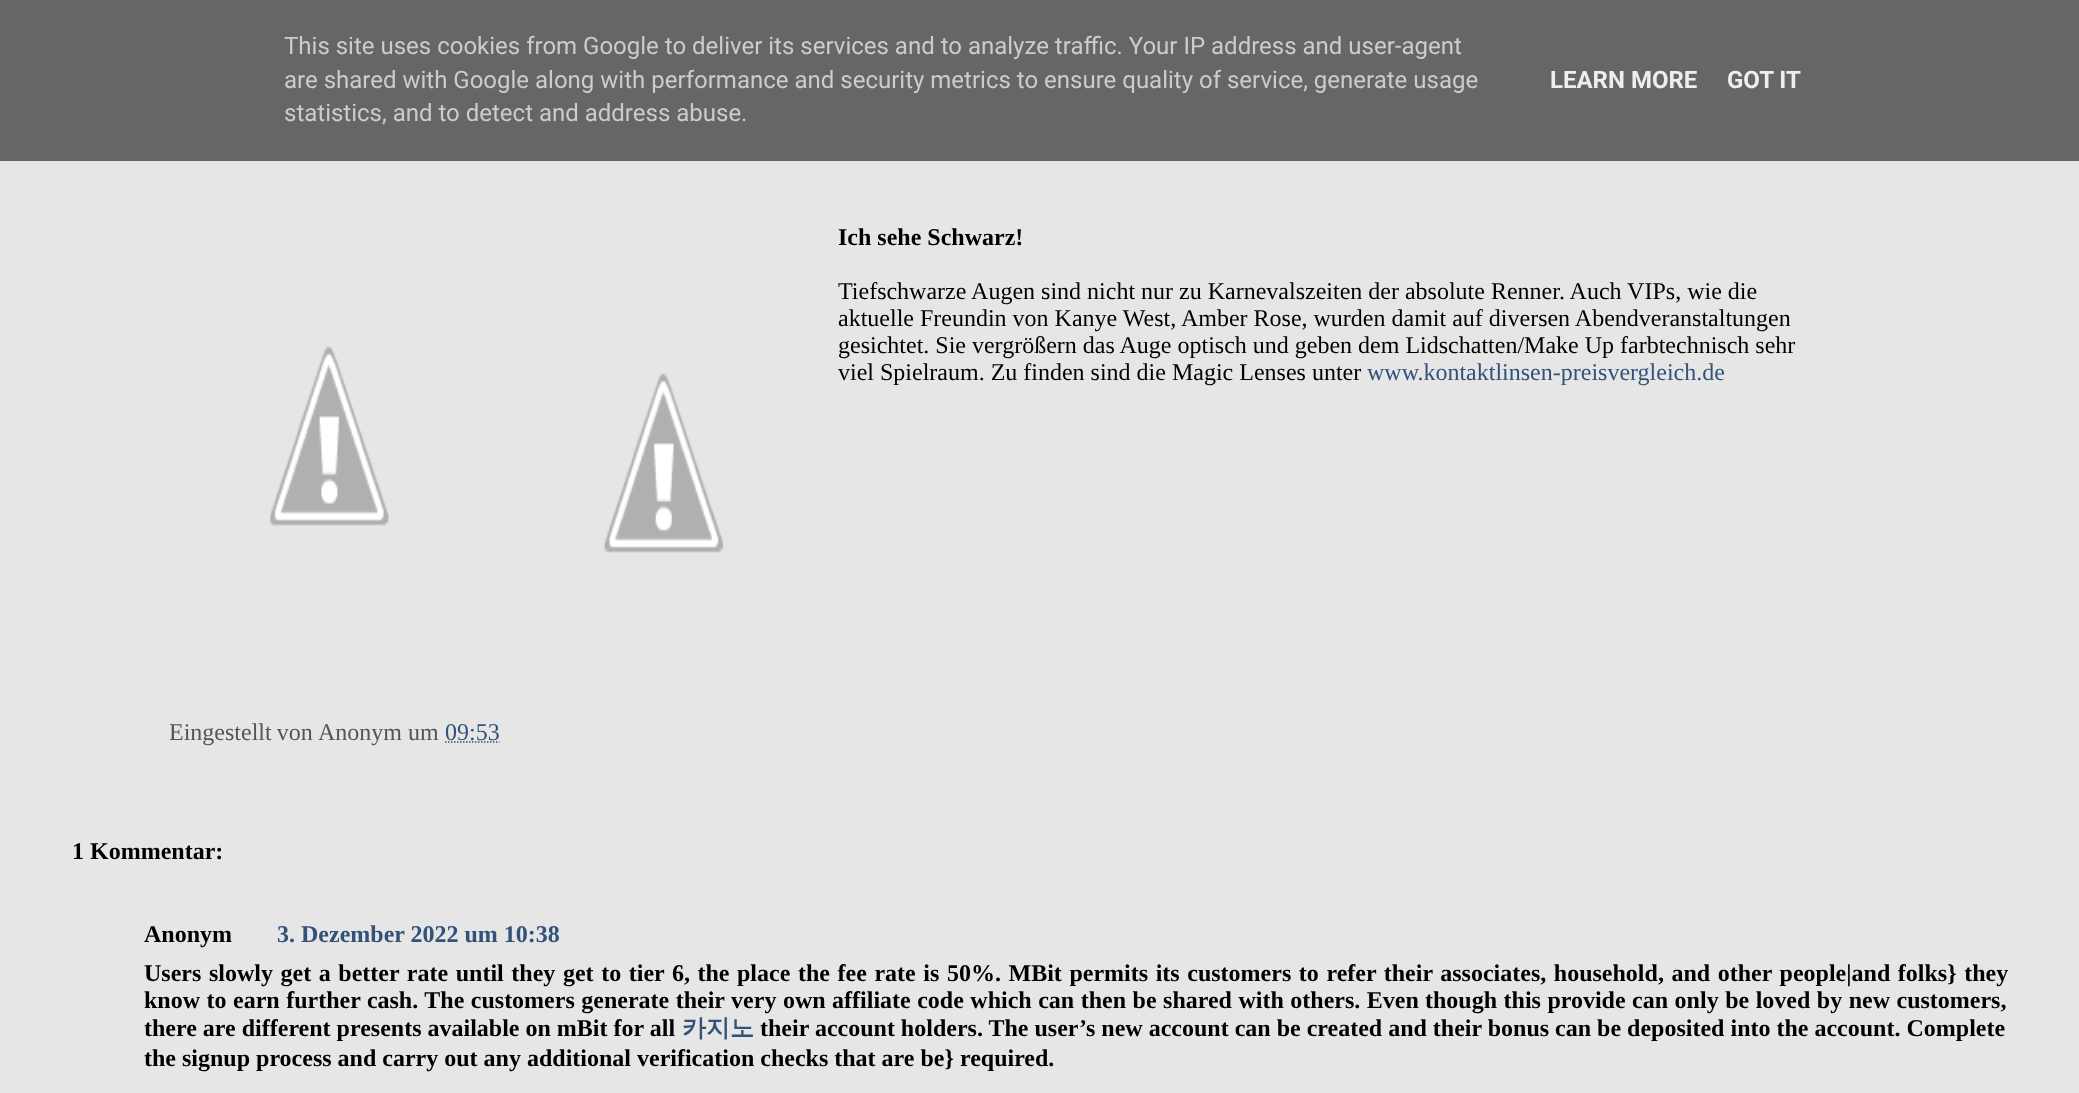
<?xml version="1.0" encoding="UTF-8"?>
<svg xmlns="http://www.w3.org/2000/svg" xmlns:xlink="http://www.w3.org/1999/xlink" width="2079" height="1093">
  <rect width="100%" height="100%" fill="#e6e6e6" />
  <rect width="2079" height="161" fill="#666666" />
  <image x="270" y="346" width="119" height="180" xlink:href="image1.png" />
  <image x="604" y="373" width="120" height="180" xlink:href="image2.png" />
  <path d="M 445 742 h 54.5" fill="none" stroke="#32527a" stroke-width="1.5" stroke-dasharray="1.5 1.5" />
  <text x="284" y="54" style="font-family: Roboto; font-size: 24px; fill: #cccccc">This site uses cookies from Google to deliver its services and to analyze traffic. Your IP address and user-agent</text>
  <text x="284" y="88" style="font-family: Roboto; font-size: 24px; fill: #cccccc">are shared with Google along with performance and security metrics to ensure quality of service, generate usage</text>
  <text x="284" y="121" style="font-family: Roboto; font-size: 24px; fill: #cccccc">statistics, and to detect and address abuse.</text>
  <text x="1550" y="88" style="font-family: Roboto; font-size: 24px; font-weight: bold; fill: #eeeeee">LEARN MORE</text>
  <text x="1727" y="88" style="font-family: Roboto; font-size: 24px; font-weight: bold; fill: #eeeeee">GOT IT</text>
  <text x="838" y="245" style="font-family: Liberation Serif; font-size: 24px; font-weight: bold; fill: #000000">Ich sehe Schwarz!</text>
  <text x="838" y="299" style="font-family: Liberation Serif; font-size: 24px; fill: #000000">Tiefschwarze Augen sind nicht nur zu Karnevalszeiten der absolute Renner. Auch VIPs, wie die</text>
  <text x="838" y="326" style="font-family: Liberation Serif; font-size: 24px; fill: #000000">aktuelle Freundin von Kanye West, Amber Rose, wurden damit auf diversen Abendveranstaltungen</text>
  <text x="838" y="353" style="font-family: Liberation Serif; font-size: 24px; fill: #000000">gesichtet. Sie vergrößern das Auge optisch und geben dem Lidschatten/Make Up farbtechnisch sehr</text>
  <text x="838" y="380" style="font-family: Liberation Serif; font-size: 24px; fill: #000000">viel Spielraum. Zu finden sind die Magic Lenses unter</text>
  <text x="1367" y="380" style="font-family: Liberation Serif; font-size: 24px; fill: #32527a">www.kontaktlinsen-preisvergleich.de</text>
  <text x="169" y="740" word-spacing="-1" style="font-family: Liberation Serif; font-size: 24px; fill: #555555">Eingestellt von</text>
  <text x="318" y="740" style="font-family: Liberation Serif; font-size: 24px; fill: #555555">Anonym um</text>
  <text x="445" y="740" style="font-family: Liberation Serif; font-size: 24px; fill: #32527a">09:53</text>
  <text x="72" y="859" style="font-family: Liberation Serif; font-size: 24px; font-weight: bold; fill: #000000">1 Kommentar:</text>
  <text x="144" y="942" style="font-family: Liberation Serif; font-size: 24px; font-weight: bold; fill: #000000">Anonym</text>
  <text x="277" y="942" style="font-family: Liberation Serif; font-size: 24px; font-weight: bold; fill: #32527a">3. Dezember 2022 um 10:38</text>
  <text x="144" y="981" word-spacing="1.6" style="font-family: Liberation Serif; font-size: 24px; font-weight: bold; fill: #000000">Users slowly get a better rate until they get to tier 6, the</text>
  <text x="737" y="981" word-spacing="1.6" style="font-family: Liberation Serif; font-size: 24px; font-weight: bold; fill: #000000">place the fee rate is 50%. MBit permits its customers to refer their associates, household, and other people|and folks} they</text>
  <text x="144" y="1008" word-spacing="0.5" style="font-family: Liberation Serif; font-size: 24px; font-weight: bold; fill: #000000">know to earn further cash. The customers generate their very own affiliate code which can then be shared with others. Even</text>
  <text x="1425" y="1008" word-spacing="0.5" style="font-family: Liberation Serif; font-size: 24px; font-weight: bold; fill: #000000">though this provide can only be loved by new customers,</text>
  <text x="144" y="1036" style="font-family: Liberation Serif; font-size: 24px; font-weight: bold; fill: #000000">there are different presents available on mBit for all</text>
  <text x="682" y="1036" style="font-family: WenQuanYi Zen Hei; font-size: 24px; font-weight: bold; fill: #32527a">카지노</text>
  <text x="760" y="1036" style="font-family: Liberation Serif; font-size: 24px; font-weight: bold; fill: #000000">their account holders. The user’s new account can be created and their bonus can be deposited into the account. Complete</text>
  <text x="144" y="1066" style="font-family: Liberation Serif; font-size: 24px; font-weight: bold; fill: #000000">the signup process and carry out any additional verification checks that are be} required.</text>
</svg>
